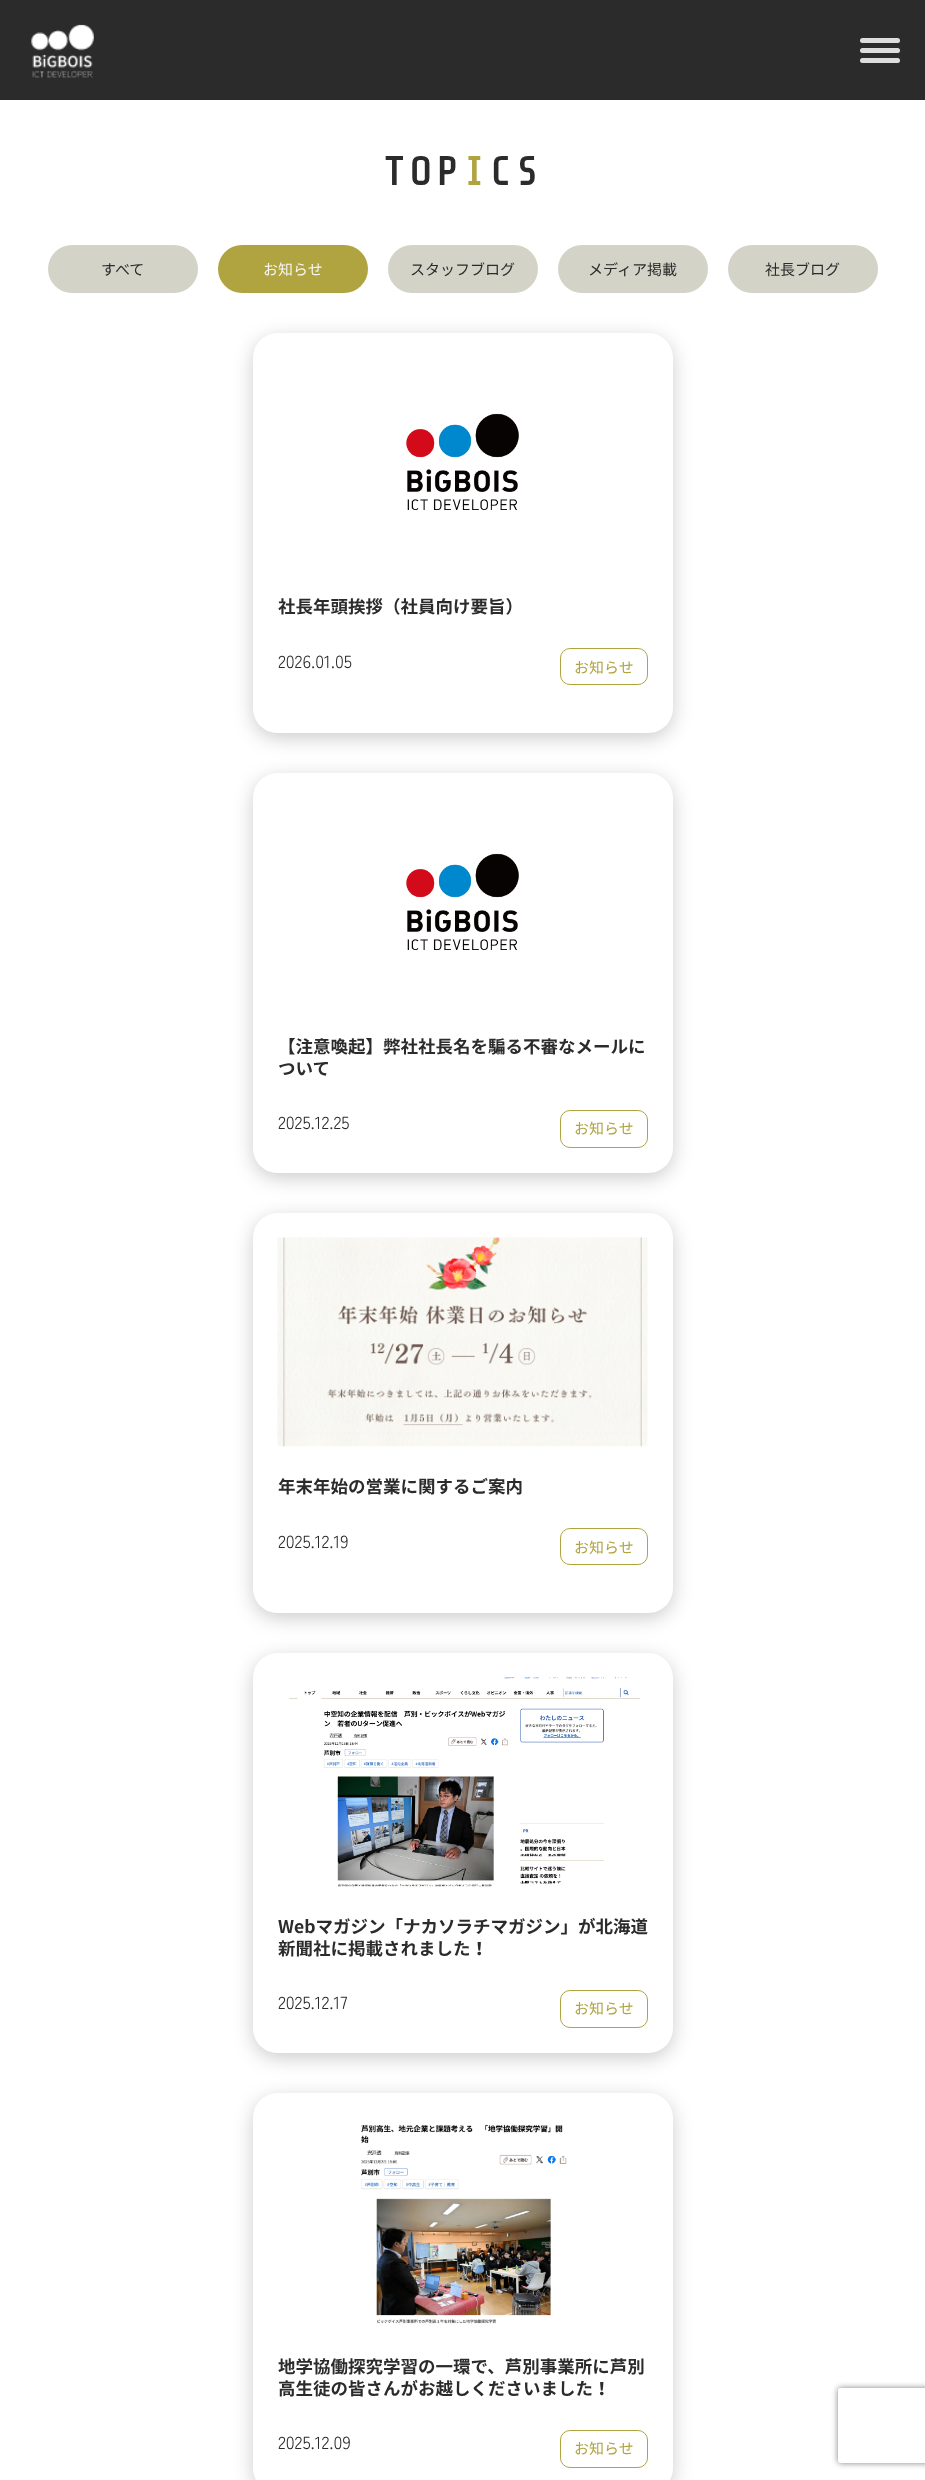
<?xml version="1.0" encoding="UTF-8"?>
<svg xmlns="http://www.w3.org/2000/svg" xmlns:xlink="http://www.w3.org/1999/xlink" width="925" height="2480">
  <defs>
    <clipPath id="clip1"><path d="M 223 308 h 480 v 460 h -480 z m 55 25 h 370 c 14 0 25 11 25 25 v 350 c 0 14 -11 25 -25 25 h -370 c -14 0 -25 -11 -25 -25 v -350 c 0 -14 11 -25 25 -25 z" clip-rule="evenodd" /></clipPath>
    <clipPath id="clip2"><path d="M 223 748 h 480 v 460 h -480 z m 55 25 h 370 c 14 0 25 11 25 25 v 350 c 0 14 -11 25 -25 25 h -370 c -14 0 -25 -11 -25 -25 v -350 c 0 -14 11 -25 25 -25 z" clip-rule="evenodd" /></clipPath>
    <clipPath id="clip3"><path d="M 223 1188 h 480 v 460 h -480 z m 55 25 h 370 c 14 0 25 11 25 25 v 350 c 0 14 -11 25 -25 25 h -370 c -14 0 -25 -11 -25 -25 v -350 c 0 -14 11 -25 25 -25 z" clip-rule="evenodd" /></clipPath>
    <clipPath id="clip4"><path d="M 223 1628 h 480 v 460 h -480 z m 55 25 h 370 c 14 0 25 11 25 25 v 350 c 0 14 -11 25 -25 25 h -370 c -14 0 -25 -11 -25 -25 v -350 c 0 -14 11 -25 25 -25 z" clip-rule="evenodd" /></clipPath>
    <clipPath id="clip5"><path d="M 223 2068 h 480 v 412 h -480 z m 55 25 h 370 c 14 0 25 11 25 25 v 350 c 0 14 -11 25 -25 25 h -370 c -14 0 -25 -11 -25 -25 v -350 c 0 -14 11 -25 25 -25 z" clip-rule="evenodd" /></clipPath>
    <clipPath id="clip6"><path d="M 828 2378 h 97 v 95 h -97 z m 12.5 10 h 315 c 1.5 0 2.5 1 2.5 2.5 v 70 c 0 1.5 -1 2.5 -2.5 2.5 h -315 c -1.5 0 -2.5 -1 -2.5 -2.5 v -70 c 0 -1.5 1 -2.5 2.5 -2.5 z" clip-rule="evenodd" /></clipPath>
  </defs>
  <rect width="100%" height="100%" fill="#ffffff" />
  <rect width="925" height="100" fill="#2b2b2b" />
  <image x="31" y="24" width="63" height="54" xlink:href="image1.png" />
  <rect x="860" y="38" width="40" height="5" rx="2.5" fill="#dddddd" />
  <rect x="860" y="48" width="40" height="5" rx="2.5" fill="#dddddd" />
  <rect x="860" y="58" width="40" height="5" rx="2.5" fill="#dddddd" />
  <rect x="48" y="245" width="150" height="48" rx="24" fill="#d3d3c8" />
  <rect x="218" y="245" width="150" height="48" rx="24" fill="#b0a441" />
  <rect x="388" y="245" width="150" height="48" rx="24" fill="#d3d3c8" />
  <rect x="558" y="245" width="150" height="48" rx="24" fill="#d3d3c8" />
  <rect x="728" y="245" width="150" height="48" rx="24" fill="#d3d3c8" />
  <g clip-path="url(#clip1)">
    <rect x="253" y="338" width="420" height="400" rx="25" fill="#000000" fill-opacity="0.2" filter="blur(9.5px)" />
  </g>
  <image x="406" y="413" width="113" height="98" xlink:href="image2.png" />
  <rect x="560.5" y="648.5" width="87" height="36" rx="9.5" fill="none" stroke="#b0a441" />
  <g clip-path="url(#clip2)">
    <rect x="253" y="778" width="420" height="400" rx="25" fill="#000000" fill-opacity="0.2" filter="blur(9.5px)" />
  </g>
  <image x="406" y="853" width="113" height="98" xlink:href="image2.png" />
  <rect x="560.5" y="1110.5" width="87" height="37" rx="9.5" fill="none" stroke="#b0a441" />
  <g clip-path="url(#clip3)">
    <rect x="253" y="1218" width="420" height="400" rx="25" fill="#000000" fill-opacity="0.2" filter="blur(9.5px)" />
  </g>
  <image x="277" y="1237" width="371" height="210" xlink:href="image3.png" />
  <rect x="560.5" y="1528.5" width="87" height="36" rx="9.5" fill="none" stroke="#b0a441" />
  <g clip-path="url(#clip4)">
    <rect x="253" y="1658" width="420" height="400" rx="25" fill="#000000" fill-opacity="0.2" filter="blur(9.5px)" />
  </g>
  <image x="289" y="1677" width="351" height="210" xlink:href="image4.png" />
  <rect x="560.5" y="1990.5" width="87" height="37" rx="9.5" fill="none" stroke="#b0a441" />
  <g clip-path="url(#clip5)">
    <rect x="253" y="2098" width="420" height="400" rx="25" fill="#000000" fill-opacity="0.2" filter="blur(9.5px)" />
  </g>
  <image x="361" y="2124" width="206" height="200" xlink:href="image5.png" />
  <rect x="560.5" y="2430.5" width="87" height="37" rx="9.5" fill="none" stroke="#b0a441" />
  <g clip-path="url(#clip6)">
    <rect x="838" y="2388" width="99" height="75" rx="2.5" fill="#808080" filter="blur(3px)" />
  </g>
  <text x="383" y="185" style="font-family: Share Tech Mono; font-size: 40px; font-weight: bold; letter-spacing: 5px; fill: #2b2b2b">TOP CS</text>
  <text x="463" y="185" style="font-family: Share Tech Mono; font-size: 40px; font-weight: bold; letter-spacing: 5px; fill: #b0a441">I</text>
  <text x="101" y="275" style="font-family: Noto Sans JP; font-size: 15px; fill: #2b2b2b">すべて</text>
  <text x="263" y="275" style="font-family: Noto Sans JP; font-size: 15px; fill: #f5f5f2">お知らせ</text>
  <text x="410" y="275" style="font-family: Noto Sans JP; font-size: 15px; fill: #2b2b2b">スタッフブログ</text>
  <text x="588" y="275" style="font-family: Noto Sans JP; font-size: 15px; fill: #2b2b2b">メディア掲載</text>
  <text x="765" y="275" style="font-family: Noto Sans JP; font-size: 15px; fill: #2b2b2b">社長ブログ</text>
  <text x="278" y="613" style="font-family: Noto Sans JP; font-size: 17.5px; font-weight: bold; fill: #2b2b2b">社長年頭挨拶（社員向け要旨）</text>
  <text x="278" y="668" style="font-family: Zen Maru Gothic; font-size: 17.5px; fill: #2b2b2b">2026.01.05</text>
  <text x="574" y="673" style="font-family: Noto Sans JP; font-size: 15px; fill: #b0a441">お知らせ</text>
  <text x="278" y="1053" style="font-family: Noto Sans JP; font-size: 17.5px; font-weight: bold; fill: #2b2b2b">【注意喚起】弊社社長名を騙る不審なメールに</text>
  <text x="278" y="1075" style="font-family: Noto Sans JP; font-size: 17.5px; font-weight: bold; fill: #2b2b2b">ついて</text>
  <text x="278" y="1129" style="font-family: Zen Maru Gothic; font-size: 17.5px; fill: #2b2b2b">2025.12.25</text>
  <text x="574" y="1134" style="font-family: Noto Sans JP; font-size: 15px; fill: #b0a441">お知らせ</text>
  <text x="278" y="1493" style="font-family: Noto Sans JP; font-size: 17.5px; font-weight: bold; fill: #2b2b2b">年末年始の営業に関するご案内</text>
  <text x="278" y="1548" style="font-family: Zen Maru Gothic; font-size: 17.5px; fill: #2b2b2b">2025.12.19</text>
  <text x="574" y="1553" style="font-family: Noto Sans JP; font-size: 15px; fill: #b0a441">お知らせ</text>
  <text x="278" y="1933" style="font-family: Noto Sans JP; font-size: 17.5px; font-weight: bold; fill: #2b2b2b">Webマガジン「ナカソラチマガジン」が北海道</text>
  <text x="278" y="1955" style="font-family: Noto Sans JP; font-size: 17.5px; font-weight: bold; fill: #2b2b2b">新聞社に掲載されました！</text>
  <text x="278" y="2009" style="font-family: Zen Maru Gothic; font-size: 17.5px; fill: #2b2b2b">2025.12.17</text>
  <text x="574" y="2014" style="font-family: Noto Sans JP; font-size: 15px; fill: #b0a441">お知らせ</text>
  <text x="278" y="2373" style="font-family: Noto Sans JP; font-size: 17.5px; font-weight: bold; fill: #2b2b2b">地学協働探究学習の一環で、芦別事業所に芦別</text>
  <text x="278" y="2395" style="font-family: Noto Sans JP; font-size: 17.5px; font-weight: bold; fill: #2b2b2b">高生徒の皆さんがお越しくださいました！</text>
  <text x="278" y="2449" style="font-family: Zen Maru Gothic; font-size: 17.5px; fill: #2b2b2b">2025.12.09</text>
  <text x="574" y="2454" style="font-family: Noto Sans JP; font-size: 15px; fill: #b0a441">お知らせ</text>
</svg>
